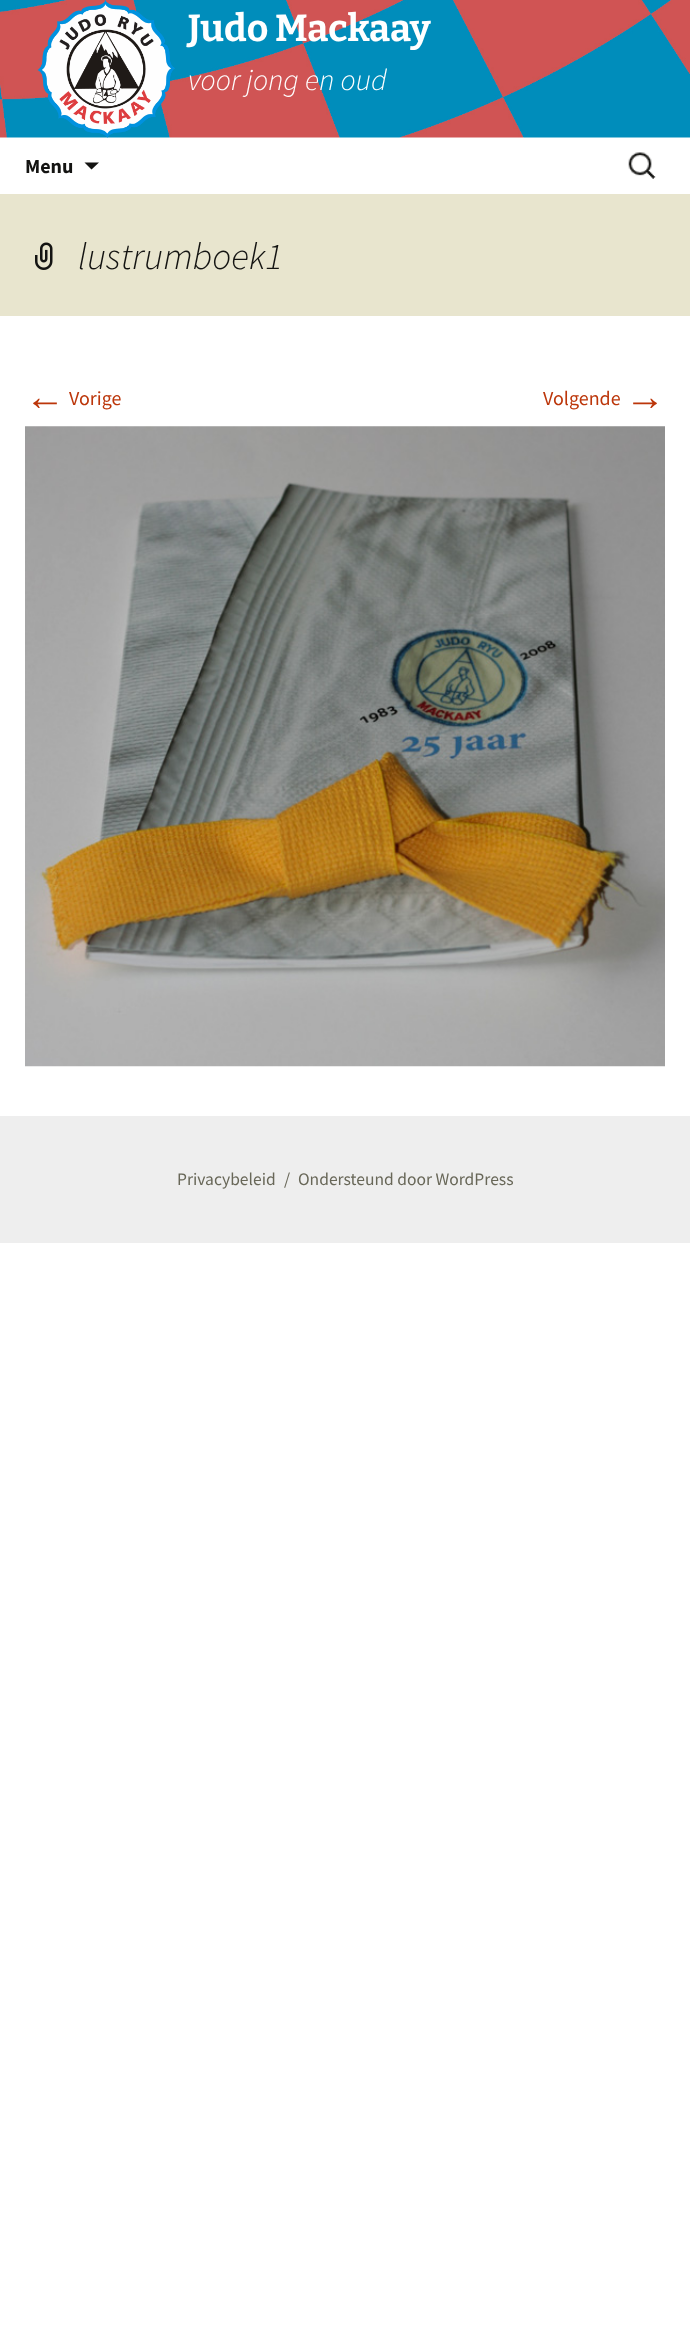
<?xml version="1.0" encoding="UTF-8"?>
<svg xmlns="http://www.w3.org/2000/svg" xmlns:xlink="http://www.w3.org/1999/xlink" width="690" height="2333">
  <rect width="100%" height="100%" fill="#ffffff" />
  <image x="0" y="0" width="690" height="138" xlink:href="image1.png" />
  <image x="37" y="0" width="138" height="138" xlink:href="image2.png" />
  <path d="M 84.5 162.5 l 7 7 l 7.5 -7 z" fill="#141412" />
  <image x="628" y="152" width="28" height="27" xlink:href="image3.png" />
  <rect y="194" width="690" height="122" fill="#e8e5ce" />
  <image x="35" y="242" width="18" height="28" xlink:href="image4.png" />
  <image x="25" y="426" width="640" height="641" xlink:href="image5.png" />
  <rect y="1116" width="690" height="127" fill="#eeeeee" />
  <text x="188" y="41" style="font-family: Bitter; font-size: 37.5px; font-weight: 100; fill: #ffffff">Judo Mackaay</text>
  <text x="188" y="90" style="font-family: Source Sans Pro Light; font-size: 30px; font-weight: 300; font-style: italic; fill: #ffffff">voor jong en oud</text>
  <text x="25" y="173" style="font-family: Source Sans Pro; font-size: 20px; font-weight: bold; fill: #141412">Menu</text>
  <text x="78" y="269" style="font-family: Source Sans Pro Light; font-size: 37.5px; font-weight: 300; font-style: italic; fill: #141412">lustrumboek1</text>
  <text x="25" y="410" style="font-family: Liberation Sans; font-size: 40px; fill: #bc360a">←</text>
  <text x="69" y="405" style="font-family: Source Sans Pro; font-size: 20px; fill: #bc360a">Vorige</text>
  <text x="543" y="405" style="font-family: Source Sans Pro; font-size: 20px; fill: #bc360a">Volgende</text>
  <text x="625" y="410" style="font-family: Liberation Sans; font-size: 40px; fill: #bc360a">→</text>
  <text x="177" y="1185" style="font-family: Source Sans Pro; font-size: 17.5px; fill: #686758">Privacybeleid</text>
  <text x="284" y="1185" style="font-family: Source Sans Pro; font-size: 17.5px; fill: #686758">/</text>
  <text x="298" y="1185" style="font-family: Source Sans Pro; font-size: 17.5px; fill: #686758">Ondersteund door WordPress</text>
</svg>
